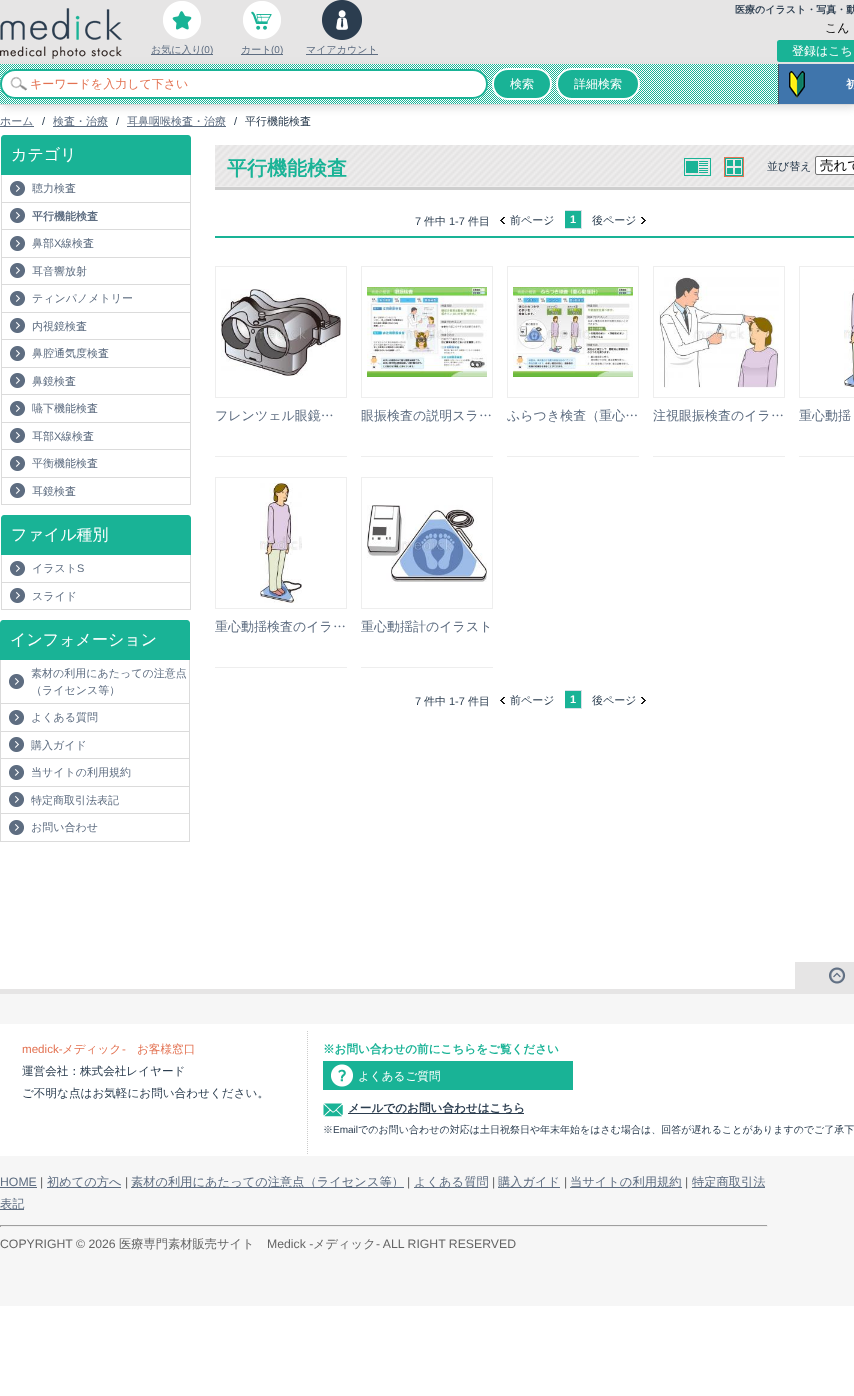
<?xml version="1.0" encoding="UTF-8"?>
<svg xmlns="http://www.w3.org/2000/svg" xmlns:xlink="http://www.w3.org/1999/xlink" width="854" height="1396">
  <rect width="100%" height="100%" fill="#ffffff" />
  <rect width="854" height="64" fill="#e6e5e5" />
  <rect x="2" y="66" width="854" height="41" fill="#d8d8d8" filter="blur(5px)" />
  <image x="0" y="8" width="122" height="51" xlink:href="image1.png" />
  <image x="163" y="1" width="38" height="38" xlink:href="image2.png" />
  <rect x="151" y="54" width="62" height="1" fill="#5e6d81" />
  <image x="243" y="1" width="38" height="38" xlink:href="image3.png" />
  <rect x="241" y="54" width="42" height="1" fill="#5e6d81" />
  <image x="322" y="0" width="40" height="40" xlink:href="image4.png" />
  <rect x="306" y="54" width="72" height="1" fill="#5e6d81" />
  <rect x="777" y="40" width="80" height="22" rx="2.5" fill="#19b396" />
  <image x="0" y="64" width="778" height="40" xlink:href="image5.png" />
  <rect y="104" width="854" height="1" fill="#d8d8d8" />
  <rect y="69" width="488" height="30" rx="15" fill="#ffffff" />
  <image x="10" y="76" width="18" height="15" xlink:href="image6.png" />
  <rect x="1" y="70" width="486" height="28" rx="14" fill="none" stroke="#19b396" stroke-width="2" />
  <rect x="493" y="69" width="58" height="30" rx="15" fill="#19b396" stroke="#ffffff" stroke-width="2" />
  <rect x="557" y="69" width="82" height="30" rx="15" fill="#19b396" stroke="#ffffff" stroke-width="2" />
  <rect x="779" y="64" width="75" height="40" fill="#3f75ac" />
  <image x="789" y="71" width="16" height="27" xlink:href="image7.png" />
  <rect x="778" y="64" width="1" height="40" fill="#4c4c5a" />
  <rect y="126" width="34" height="1" fill="#5e6d81" />
  <rect x="53" y="126" width="55" height="1" fill="#5e6d81" />
  <rect x="127" y="126" width="99" height="1" fill="#5e6d81" />
  <path d="M 4 135 h 184 c 1.5 0 3 1.5 3 3 v 37 h -190 v -37 c 0 -1.5 1.5 -3 3 -3 z" fill="#19b396" />
  <rect x="190" y="175" width="1" height="330" fill="#dbdbdb" />
  <rect x="1" y="202" width="190" height="1" fill="#dbdbdb" />
  <rect x="1" y="175" width="1" height="28" fill="#dbdbdb" />
  <image x="10" y="181" width="15" height="15" xlink:href="image8.png" />
  <rect x="1" y="229" width="190" height="1" fill="#dbdbdb" />
  <rect x="1" y="203" width="1" height="27" fill="#dbdbdb" />
  <image x="10" y="208" width="15" height="15" xlink:href="image8.png" />
  <rect x="1" y="257" width="190" height="1" fill="#dbdbdb" />
  <rect x="1" y="230" width="1" height="28" fill="#dbdbdb" />
  <image x="10" y="236" width="15" height="15" xlink:href="image8.png" />
  <rect x="1" y="284" width="190" height="1" fill="#dbdbdb" />
  <rect x="1" y="258" width="1" height="27" fill="#dbdbdb" />
  <image x="10" y="263" width="15" height="15" xlink:href="image8.png" />
  <rect x="1" y="312" width="190" height="1" fill="#dbdbdb" />
  <rect x="1" y="285" width="1" height="28" fill="#dbdbdb" />
  <image x="10" y="291" width="15" height="15" xlink:href="image8.png" />
  <rect x="1" y="339" width="190" height="1" fill="#dbdbdb" />
  <rect x="1" y="313" width="1" height="27" fill="#dbdbdb" />
  <image x="10" y="318" width="15" height="15" xlink:href="image8.png" />
  <rect x="1" y="367" width="190" height="1" fill="#dbdbdb" />
  <rect x="1" y="340" width="1" height="28" fill="#dbdbdb" />
  <image x="10" y="346" width="15" height="15" xlink:href="image8.png" />
  <rect x="1" y="394" width="190" height="1" fill="#dbdbdb" />
  <rect x="1" y="368" width="1" height="27" fill="#dbdbdb" />
  <image x="10" y="373" width="15" height="15" xlink:href="image8.png" />
  <rect x="1" y="422" width="190" height="1" fill="#dbdbdb" />
  <rect x="1" y="395" width="1" height="28" fill="#dbdbdb" />
  <image x="10" y="401" width="15" height="15" xlink:href="image8.png" />
  <rect x="1" y="449" width="190" height="1" fill="#dbdbdb" />
  <rect x="1" y="423" width="1" height="27" fill="#dbdbdb" />
  <image x="10" y="428" width="15" height="15" xlink:href="image8.png" />
  <rect x="1" y="477" width="190" height="1" fill="#dbdbdb" />
  <rect x="1" y="450" width="1" height="28" fill="#dbdbdb" />
  <image x="10" y="456" width="15" height="15" xlink:href="image8.png" />
  <rect x="1" y="504" width="190" height="1" fill="#dbdbdb" />
  <rect x="1" y="478" width="1" height="27" fill="#dbdbdb" />
  <image x="10" y="483" width="15" height="15" xlink:href="image8.png" />
  <path d="M 4 515 h 184 c 1.5 0 3 1.5 3 3 v 37 h -190 v -37 c 0 -1.5 1.5 -3 3 -3 z" fill="#19b396" />
  <rect x="190" y="555" width="1" height="55" fill="#dbdbdb" />
  <rect x="1" y="582" width="190" height="1" fill="#dbdbdb" />
  <rect x="1" y="555" width="1" height="28" fill="#dbdbdb" />
  <image x="10" y="561" width="15" height="15" xlink:href="image8.png" />
  <rect x="1" y="609" width="190" height="1" fill="#dbdbdb" />
  <rect x="1" y="583" width="1" height="27" fill="#dbdbdb" />
  <image x="10" y="588" width="15" height="15" xlink:href="image8.png" />
  <path d="M 3 620 h 184 c 1.5 0 3 1.5 3 3 v 37 h -190 v -37 c 0 -1.5 1.5 -3 3 -3 z" fill="#19b396" />
  <rect x="189" y="660" width="1" height="182" fill="#dbdbdb" />
  <rect y="703" width="190" height="1" fill="#dbdbdb" />
  <rect y="660" width="1" height="44" fill="#dbdbdb" />
  <image x="9" y="674" width="15" height="15" xlink:href="image8.png" />
  <rect y="731" width="190" height="1" fill="#dbdbdb" />
  <rect y="704" width="1" height="28" fill="#dbdbdb" />
  <image x="9" y="710" width="15" height="15" xlink:href="image8.png" />
  <rect y="758" width="190" height="1" fill="#dbdbdb" />
  <rect y="732" width="1" height="27" fill="#dbdbdb" />
  <image x="9" y="737" width="15" height="15" xlink:href="image8.png" />
  <rect y="786" width="190" height="1" fill="#dbdbdb" />
  <rect y="759" width="1" height="28" fill="#dbdbdb" />
  <image x="9" y="765" width="15" height="15" xlink:href="image8.png" />
  <rect y="813" width="190" height="1" fill="#dbdbdb" />
  <rect y="787" width="1" height="27" fill="#dbdbdb" />
  <image x="9" y="792" width="15" height="15" xlink:href="image8.png" />
  <rect y="841" width="190" height="1" fill="#dbdbdb" />
  <rect y="814" width="1" height="28" fill="#dbdbdb" />
  <image x="9" y="820" width="15" height="15" xlink:href="image8.png" />
  <image x="215" y="145" width="639" height="45" xlink:href="image9.png" />
  <image x="684" y="158" width="27" height="18" xlink:href="image10.png" />
  <rect x="724.5" y="157.5" width="19" height="19" fill="none" stroke="#e37252" />
  <image x="725" y="158" width="18" height="18" xlink:href="image11.png" />
  <rect x="815.5" y="156.5" width="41" height="18" rx="1.5" fill="#ffffff" stroke="#767676" />
  <image x="500" y="217" width="5" height="7" xlink:href="image12.png" />
  <rect x="565" y="211" width="16" height="17" fill="#19b396" />
  <rect x="565" y="210" width="17" height="1" fill="#d8dfe7" />
  <rect x="581" y="210" width="1" height="19" fill="#d8dfe7" />
  <rect x="565" y="228" width="17" height="1" fill="#d8dfe7" />
  <image x="641" y="217" width="5" height="7" xlink:href="image13.png" />
  <rect x="215" y="236" width="639" height="2" fill="#19b396" />
  <rect x="215" y="456" width="132" height="1" fill="#eeeeee" />
  <rect x="215.5" y="266.5" width="131" height="131" fill="none" stroke="#eeeeee" />
  <image x="221" y="289" width="120" height="87" xlink:href="image14.png" />
  <rect x="361" y="456" width="132" height="1" fill="#eeeeee" />
  <rect x="361.5" y="266.5" width="131" height="131" fill="none" stroke="#eeeeee" />
  <image x="367" y="287" width="120" height="90" xlink:href="image15.png" />
  <rect x="507" y="456" width="132" height="1" fill="#eeeeee" />
  <rect x="507.5" y="266.5" width="131" height="131" fill="none" stroke="#eeeeee" />
  <image x="513" y="287" width="120" height="90" xlink:href="image16.png" />
  <rect x="653" y="456" width="132" height="1" fill="#eeeeee" />
  <rect x="653.5" y="266.5" width="131" height="131" fill="none" stroke="#eeeeee" />
  <image x="659" y="277" width="120" height="111" xlink:href="image17.png" />
  <rect x="799" y="456" width="55" height="1" fill="#eeeeee" />
  <rect x="799.5" y="266.5" width="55" height="131" fill="none" stroke="#eeeeee" />
  <image x="844" y="279" width="10" height="108" xlink:href="image18.png" />
  <rect x="215" y="667" width="132" height="1" fill="#eeeeee" />
  <rect x="215.5" y="477.5" width="131" height="131" fill="none" stroke="#eeeeee" />
  <image x="260" y="483" width="42" height="120" xlink:href="image19.png" />
  <rect x="361" y="667" width="132" height="1" fill="#eeeeee" />
  <rect x="361.5" y="477.5" width="131" height="131" fill="none" stroke="#eeeeee" />
  <image x="367" y="505" width="120" height="77" xlink:href="image20.png" />
  <image x="500" y="697" width="5" height="7" xlink:href="image12.png" />
  <rect x="565" y="691" width="16" height="17" fill="#19b396" />
  <rect x="565" y="690" width="17" height="1" fill="#d8dfe7" />
  <rect x="581" y="690" width="1" height="19" fill="#d8dfe7" />
  <rect x="565" y="708" width="17" height="1" fill="#d8dfe7" />
  <image x="641" y="697" width="5" height="7" xlink:href="image13.png" />
  <image x="795" y="962" width="59" height="27" xlink:href="image21.png" />
  <rect y="994" width="854" height="312" fill="#f6f6f6" />
  <rect y="989" width="854" height="5" fill="#e6e5e5" />
  <rect y="1024" width="854" height="132" fill="#ffffff" />
  <path d="M 307.5 1031 v 123" fill="none" stroke="#cccccc" stroke-dasharray="1 1" />
  <image x="323" y="1061" width="250" height="29" xlink:href="image22.png" />
  <image x="323" y="1103" width="20" height="14" xlink:href="image23.png" />
  <rect x="348" y="1113" width="176" height="1" fill="#2b3d4f" />
  <rect y="1187" width="37" height="1" fill="#5e6d81" />
  <rect x="47" y="1187" width="74" height="1" fill="#5e6d81" />
  <rect x="131" y="1187" width="273" height="1" fill="#5e6d81" />
  <rect x="414" y="1187" width="74" height="1" fill="#5e6d81" />
  <rect x="498" y="1187" width="62" height="1" fill="#5e6d81" />
  <rect x="570" y="1187" width="112" height="1" fill="#5e6d81" />
  <rect x="692" y="1187" width="73" height="1" fill="#5e6d81" />
  <rect y="1209" width="24" height="1" fill="#5e6d81" />
  <rect y="1225" width="768" height="1" fill="#9f9f9f" />
  <rect x="767" y="1225" width="1" height="2" fill="#eeeeee" />
  <rect y="1226" width="768" height="1" fill="#eeeeee" />
  <rect y="1225" width="1" height="2" fill="#9f9f9f" />
  <text x="151" y="53" style="font-family: WenQuanYi Zen Hei; font-size: 10px; font-weight: 500; fill: #5e6d81">お気に入り</text>
  <text x="201" y="53" style="font-family: Liberation Sans; font-size: 10px; fill: #5e6d81">(0)</text>
  <text x="241" y="53" style="font-family: WenQuanYi Zen Hei; font-size: 10px; font-weight: 500; fill: #5e6d81">カート</text>
  <text x="271" y="53" style="font-family: Liberation Sans; font-size: 10px; fill: #5e6d81">(0)</text>
  <text x="306" y="53" style="font-family: WenQuanYi Zen Hei; font-size: 10px; font-weight: 500; fill: #5e6d81">マイアカウント</text>
  <text x="735" y="13" style="font-family: WenQuanYi Zen Hei; font-size: 10px; font-weight: bold; fill: #2b3d4f">医療のイラスト・写真・動</text>
  <text x="825" y="32" style="font-family: WenQuanYi Zen Hei; font-size: 12px; font-weight: 500; fill: #000000">こん</text>
  <text x="792" y="55" style="font-family: WenQuanYi Zen Hei; font-size: 12px; font-weight: 500; fill: #ffffff">登録はこち</text>
  <text x="30" y="88" style="font-family: WenQuanYi Zen Hei; font-size: 12px; font-weight: 500; fill: #e37252">キーワードを入力して下さい</text>
  <text x="510" y="88" style="font-family: WenQuanYi Zen Hei; font-size: 12px; font-weight: 500; fill: #ffffff">検索</text>
  <text x="574" y="88" style="font-family: WenQuanYi Zen Hei; font-size: 12px; font-weight: 500; fill: #ffffff">詳細検索</text>
  <text x="846" y="88" style="font-family: WenQuanYi Zen Hei; font-size: 11px; font-weight: bold; fill: #ffffff">初</text>
  <text x="0" y="125" style="font-family: WenQuanYi Zen Hei; font-size: 11px; font-weight: 500; fill: #5e6d81">ホーム</text>
  <text x="42" y="125" style="font-family: Liberation Sans; font-size: 11px; fill: #2b3d4f">/</text>
  <text x="53" y="125" style="font-family: WenQuanYi Zen Hei; font-size: 11px; font-weight: 500; fill: #5e6d81">検査・治療</text>
  <text x="116" y="125" style="font-family: Liberation Sans; font-size: 11px; fill: #2b3d4f">/</text>
  <text x="127" y="125" style="font-family: WenQuanYi Zen Hei; font-size: 11px; font-weight: 500; fill: #5e6d81">耳鼻咽喉検査・治療</text>
  <text x="234" y="125" style="font-family: Liberation Sans; font-size: 11px; fill: #2b3d4f">/</text>
  <text x="245" y="125" style="font-family: WenQuanYi Zen Hei; font-size: 11px; font-weight: 500; fill: #2b3d4f">平行機能検査</text>
  <text x="11" y="160" style="font-family: WenQuanYi Zen Hei; font-size: 16px; font-weight: 500; fill: #ffffff">カテゴリ</text>
  <text x="32" y="192" style="font-family: WenQuanYi Zen Hei; font-size: 11px; font-weight: 500; fill: #5e6d81">聴力検査</text>
  <text x="32" y="220" style="font-family: WenQuanYi Zen Hei; font-size: 11px; font-weight: bold; fill: #5e6d81">平行機能検査</text>
  <text x="32" y="247" style="font-family: WenQuanYi Zen Hei; font-size: 11px; font-weight: 500; fill: #5e6d81">鼻部</text>
  <text x="54" y="247" style="font-family: Liberation Sans; font-size: 11px; fill: #5e6d81">X</text>
  <text x="61" y="247" style="font-family: WenQuanYi Zen Hei; font-size: 11px; font-weight: 500; fill: #5e6d81">線検査</text>
  <text x="32" y="275" style="font-family: WenQuanYi Zen Hei; font-size: 11px; font-weight: 500; fill: #5e6d81">耳音響放射</text>
  <text x="32" y="302" style="font-family: WenQuanYi Zen Hei; font-size: 11px; font-weight: 500; fill: #5e6d81">ティンパノメトリー</text>
  <text x="32" y="330" style="font-family: WenQuanYi Zen Hei; font-size: 11px; font-weight: 500; fill: #5e6d81">内視鏡検査</text>
  <text x="32" y="357" style="font-family: WenQuanYi Zen Hei; font-size: 11px; font-weight: 500; fill: #5e6d81">鼻腔通気度検査</text>
  <text x="32" y="385" style="font-family: WenQuanYi Zen Hei; font-size: 11px; font-weight: 500; fill: #5e6d81">鼻鏡検査</text>
  <text x="32" y="412" style="font-family: WenQuanYi Zen Hei; font-size: 11px; font-weight: 500; fill: #5e6d81">嚥下機能検査</text>
  <text x="32" y="440" style="font-family: WenQuanYi Zen Hei; font-size: 11px; font-weight: 500; fill: #5e6d81">耳部</text>
  <text x="54" y="440" style="font-family: Liberation Sans; font-size: 11px; fill: #5e6d81">X</text>
  <text x="61" y="440" style="font-family: WenQuanYi Zen Hei; font-size: 11px; font-weight: 500; fill: #5e6d81">線検査</text>
  <text x="32" y="467" style="font-family: WenQuanYi Zen Hei; font-size: 11px; font-weight: 500; fill: #5e6d81">平衡機能検査</text>
  <text x="32" y="495" style="font-family: WenQuanYi Zen Hei; font-size: 11px; font-weight: 500; fill: #5e6d81">耳鏡検査</text>
  <text x="11" y="540" style="font-family: WenQuanYi Zen Hei; font-size: 16px; font-weight: 500; fill: #ffffff">ファイル種別</text>
  <text x="32" y="572" style="font-family: WenQuanYi Zen Hei; font-size: 11px; font-weight: 500; fill: #5e6d81">イラスト</text>
  <text x="77" y="572" style="font-family: Liberation Sans; font-size: 11px; fill: #5e6d81">S</text>
  <text x="32" y="600" style="font-family: WenQuanYi Zen Hei; font-size: 11px; font-weight: 500; fill: #5e6d81">スライド</text>
  <text x="10" y="645" style="font-family: WenQuanYi Zen Hei; font-size: 16px; font-weight: 500; fill: #ffffff">インフォメーション</text>
  <text x="31" y="677" style="font-family: WenQuanYi Zen Hei; font-size: 11px; font-weight: 500; fill: #5e6d81">素材の利用にあたっての注意点</text>
  <text x="31" y="694" style="font-family: WenQuanYi Zen Hei; font-size: 11px; font-weight: 500; fill: #5e6d81">（ライセンス等）</text>
  <text x="31" y="721" style="font-family: WenQuanYi Zen Hei; font-size: 11px; font-weight: 500; fill: #5e6d81">よくある質問</text>
  <text x="31" y="749" style="font-family: WenQuanYi Zen Hei; font-size: 11px; font-weight: 500; fill: #5e6d81">購入ガイド</text>
  <text x="31" y="776" style="font-family: WenQuanYi Zen Hei; font-size: 11px; font-weight: 500; fill: #5e6d81">当サイトの利用規約</text>
  <text x="31" y="804" style="font-family: WenQuanYi Zen Hei; font-size: 11px; font-weight: 500; fill: #5e6d81">特定商取引法表記</text>
  <text x="31" y="831" style="font-family: WenQuanYi Zen Hei; font-size: 11px; font-weight: 500; fill: #5e6d81">お問い合わせ</text>
  <text x="227" y="175" style="font-family: WenQuanYi Zen Hei; font-size: 20px; font-weight: bold; fill: #19b396">平行機能検査</text>
  <text x="767" y="170" style="font-family: WenQuanYi Zen Hei; font-size: 11px; font-weight: 500; fill: #2b3d4f">並び替え</text>
  <text x="820" y="170" style="font-family: WenQuanYi Zen Hei; font-size: 13.5px; font-weight: 500; fill: #000000">売れて</text>
  <text x="415" y="225" style="font-family: Liberation Sans; font-size: 11px; fill: #2b3d4f">7</text>
  <text x="424" y="225" style="font-family: WenQuanYi Zen Hei; font-size: 11px; font-weight: 500; fill: #2b3d4f">件中</text>
  <text x="449" y="225" style="font-family: Liberation Sans; font-size: 11px; fill: #2b3d4f">1-7</text>
  <text x="468" y="225" style="font-family: WenQuanYi Zen Hei; font-size: 11px; font-weight: 500; fill: #2b3d4f">件目</text>
  <text x="510" y="224" style="font-family: WenQuanYi Zen Hei; font-size: 11px; font-weight: 500; fill: #2b3d4f">前ページ</text>
  <text x="570" y="223" style="font-family: Liberation Sans; font-size: 11px; font-weight: bold; fill: #ffffff">1</text>
  <text x="592" y="224" style="font-family: WenQuanYi Zen Hei; font-size: 11px; font-weight: 500; fill: #2b3d4f">後ページ</text>
  <text x="215" y="420" style="font-family: WenQuanYi Zen Hei; font-size: 13px; font-weight: 500; fill: #5e6d81">フレンツェル眼鏡…</text>
  <text x="361" y="420" style="font-family: WenQuanYi Zen Hei; font-size: 13px; font-weight: 500; fill: #5e6d81">眼振検査の説明スラ…</text>
  <text x="507" y="420" style="font-family: WenQuanYi Zen Hei; font-size: 13px; font-weight: 500; fill: #5e6d81">ふらつき検査（重心…</text>
  <text x="653" y="420" style="font-family: WenQuanYi Zen Hei; font-size: 13px; font-weight: 500; fill: #5e6d81">注視眼振検査のイラ…</text>
  <text x="799" y="420" style="font-family: WenQuanYi Zen Hei; font-size: 13px; font-weight: 500; fill: #5e6d81">重心動揺</text>
  <text x="215" y="631" style="font-family: WenQuanYi Zen Hei; font-size: 13px; font-weight: 500; fill: #5e6d81">重心動揺検査のイラ…</text>
  <text x="361" y="631" style="font-family: WenQuanYi Zen Hei; font-size: 13px; font-weight: 500; fill: #5e6d81">重心動揺計のイラスト</text>
  <text x="415" y="705" style="font-family: Liberation Sans; font-size: 11px; fill: #2b3d4f">7</text>
  <text x="424" y="705" style="font-family: WenQuanYi Zen Hei; font-size: 11px; font-weight: 500; fill: #2b3d4f">件中</text>
  <text x="449" y="705" style="font-family: Liberation Sans; font-size: 11px; fill: #2b3d4f">1-7</text>
  <text x="468" y="705" style="font-family: WenQuanYi Zen Hei; font-size: 11px; font-weight: 500; fill: #2b3d4f">件目</text>
  <text x="510" y="704" style="font-family: WenQuanYi Zen Hei; font-size: 11px; font-weight: 500; fill: #2b3d4f">前ページ</text>
  <text x="570" y="703" style="font-family: Liberation Sans; font-size: 11px; font-weight: bold; fill: #ffffff">1</text>
  <text x="592" y="704" style="font-family: WenQuanYi Zen Hei; font-size: 11px; font-weight: 500; fill: #2b3d4f">後ページ</text>
  <text x="22" y="1053" style="font-family: Liberation Sans; font-size: 11.6px; fill: #e37252">medick-</text>
  <text x="62" y="1053" style="font-family: WenQuanYi Zen Hei; font-size: 11.6px; font-weight: 500; fill: #e37252">メディック</text>
  <text x="122" y="1053" style="font-family: Liberation Sans; font-size: 11.6px; fill: #e37252">-</text>
  <text x="137" y="1053" style="font-family: WenQuanYi Zen Hei; font-size: 11.6px; font-weight: 500; fill: #e37252">お客様窓口</text>
  <text x="22" y="1075" style="font-family: WenQuanYi Zen Hei; font-size: 11.6px; font-weight: 500; fill: #2b3d4f">運営会社：株式会社レイヤード</text>
  <text x="22" y="1097" style="font-family: WenQuanYi Zen Hei; font-size: 11.6px; font-weight: 500; fill: #2b3d4f">ご不明な点はお気軽にお問い合わせください。</text>
  <text x="323" y="1053" style="font-family: WenQuanYi Zen Hei; font-size: 11.6px; font-weight: bold; fill: #19b396">※お問い合わせの前にこちらをご覧ください</text>
  <text x="358" y="1080" style="font-family: WenQuanYi Zen Hei; font-size: 11.6px; font-weight: 500; fill: #ffffff">よくあるご質問</text>
  <text x="348" y="1112" style="font-family: WenQuanYi Zen Hei; font-size: 11.6px; font-weight: bold; fill: #2b3d4f">メールでのお問い合わせはこちら</text>
  <text x="323" y="1133" style="font-family: WenQuanYi Zen Hei; font-size: 10px; font-weight: 500; fill: #2b3d4f">※</text>
  <text x="333" y="1133" style="font-family: Liberation Sans; font-size: 10px; fill: #2b3d4f">Email</text>
  <text x="358" y="1133" style="font-family: WenQuanYi Zen Hei; font-size: 10px; font-weight: 500; fill: #2b3d4f">でのお問い合わせの対応は土日祝祭日や年末年始をはさむ場合は、回答が遅れることがありますのでご了承下</text>
  <text x="0" y="1186" style="font-family: Liberation Sans; font-size: 12.25px; fill: #5e6d81">HOME</text>
  <text x="40" y="1186" style="font-family: Liberation Sans; font-size: 12.25px; fill: #646464">|</text>
  <text x="47" y="1186" style="font-family: WenQuanYi Zen Hei; font-size: 12.25px; font-weight: 500; fill: #5e6d81">初めての方へ</text>
  <text x="125" y="1186" style="font-family: Liberation Sans; font-size: 12.25px; fill: #646464">|</text>
  <text x="131" y="1186" style="font-family: WenQuanYi Zen Hei; font-size: 12.25px; font-weight: 500; fill: #5e6d81">素材の利用にあたっての注意点（ライセンス等）</text>
  <text x="407" y="1186" style="font-family: Liberation Sans; font-size: 12.25px; fill: #646464">|</text>
  <text x="414" y="1186" style="font-family: WenQuanYi Zen Hei; font-size: 12.25px; font-weight: 500; fill: #5e6d81">よくある質問</text>
  <text x="492" y="1186" style="font-family: Liberation Sans; font-size: 12.25px; fill: #646464">|</text>
  <text x="498" y="1186" style="font-family: WenQuanYi Zen Hei; font-size: 12.25px; font-weight: 500; fill: #5e6d81">購入ガイド</text>
  <text x="564" y="1186" style="font-family: Liberation Sans; font-size: 12.25px; fill: #646464">|</text>
  <text x="570" y="1186" style="font-family: WenQuanYi Zen Hei; font-size: 12.25px; font-weight: 500; fill: #5e6d81">当サイトの利用規約</text>
  <text x="685" y="1186" style="font-family: Liberation Sans; font-size: 12.25px; fill: #646464">|</text>
  <text x="692" y="1186" style="font-family: WenQuanYi Zen Hei; font-size: 12.25px; font-weight: 500; fill: #5e6d81">特定商取引法</text>
  <text x="0" y="1208" style="font-family: WenQuanYi Zen Hei; font-size: 12.25px; font-weight: 500; fill: #5e6d81">表記</text>
  <text x="0" y="1248" style="font-family: Liberation Sans; font-size: 12.25px; fill: #646464">COPYRIGHT © 2026</text>
  <text x="119" y="1248" style="font-family: WenQuanYi Zen Hei; font-size: 12.25px; font-weight: 500; fill: #646464">医療専門素材販売サイト</text>
  <text x="267" y="1248" style="font-family: Liberation Sans; font-size: 12.25px; fill: #646464">Medick -</text>
  <text x="313" y="1248" style="font-family: WenQuanYi Zen Hei; font-size: 12.25px; font-weight: 500; fill: #646464">メディック</text>
  <text x="376" y="1248" style="font-family: Liberation Sans; font-size: 12.25px; fill: #646464">- ALL RIGHT RESERVED</text>
</svg>
